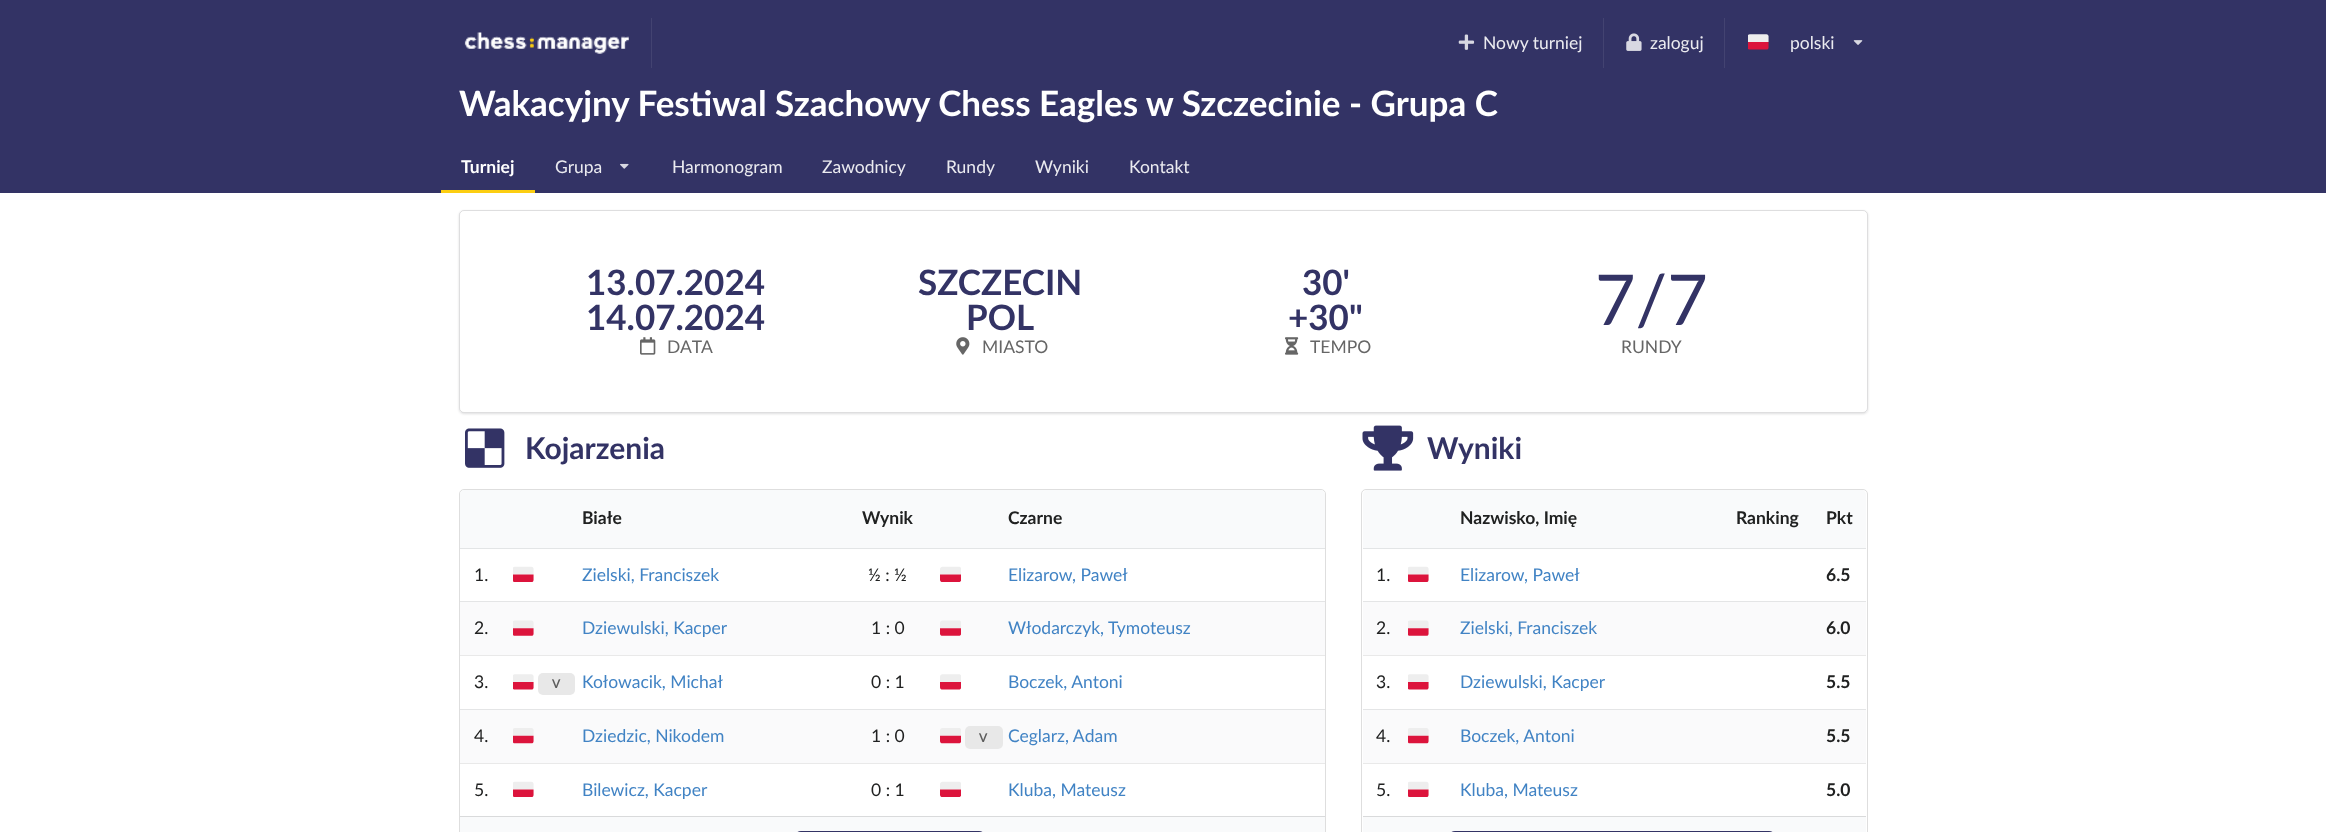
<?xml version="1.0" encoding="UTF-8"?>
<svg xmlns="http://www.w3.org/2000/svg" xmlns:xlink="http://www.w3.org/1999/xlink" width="2326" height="832">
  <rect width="100%" height="100%" fill="#ffffff" />
  <rect width="2326" height="193" fill="#333365" />
  <image x="464" y="32" width="165" height="22" xlink:href="image1.png" />
  <rect x="651" y="18" width="1" height="50" fill="#434371" />
  <image x="1458" y="34" width="17" height="16" xlink:href="image2.png" />
  <rect x="1603" y="18" width="1" height="50" fill="#434371" />
  <image x="1626" y="33" width="16" height="18" xlink:href="image3.png" />
  <rect x="1724" y="18" width="1" height="50" fill="#434371" />
  <image x="1748" y="34" width="21" height="16" xlink:href="image4.png" />
  <image x="1853" y="40" width="10" height="5" xlink:href="image5.png" />
  <rect x="441" y="190" width="94" height="3" fill="#fcce11" />
  <image x="620" y="163" width="9" height="6" xlink:href="image6.png" />
  <rect x="459" y="211" width="1409" height="203" rx="5" fill="#222426" fill-opacity="0.15" filter="blur(1px)" />
  <rect x="459" y="210" width="1409" height="203" rx="5" fill="#ffffff" />
  <rect x="459.5" y="210.5" width="1408" height="202" rx="4.5" fill="none" stroke="#222426" stroke-opacity="0.15" />
  <image x="640" y="337" width="16" height="18" xlink:href="image7.png" />
  <image x="956" y="337" width="14" height="18" xlink:href="image8.png" />
  <image x="1285" y="337" width="14" height="18" xlink:href="image9.png" />
  <image x="465" y="428" width="40" height="40" xlink:href="image10.png" />
  <rect x="459.5" y="489.5" width="866" height="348" rx="4.5" fill="none" stroke="#dedede" />
  <path d="M 465 490 h 44 v 59 h -49 v -54 c 0 -3 2 -5 5 -5 z" fill="#f9fafb" />
  <rect x="460" y="548" width="821" height="1" fill="#e3e5e6" />
  <rect x="509" y="490" width="772" height="58" fill="#f9fafb" />
  <path d="M 1281 490 h 39 c 3 0 5 2 5 5 v 54 h -44 z" fill="#f9fafb" />
  <rect x="1281" y="548" width="44" height="1" fill="#e3e5e6" />
  <image x="513" y="566" width="21" height="16" xlink:href="image11.png" />
  <image x="940" y="566" width="21" height="16" xlink:href="image12.png" />
  <rect x="460" y="602" width="865" height="53" fill="#fafafb" />
  <rect x="460" y="601" width="865" height="1" fill="#e4e5e6" />
  <image x="513" y="620" width="21" height="16" xlink:href="image13.png" />
  <image x="940" y="620" width="21" height="16" xlink:href="image14.png" />
  <rect x="460" y="655" width="865" height="1" fill="#e9e9e9" />
  <image x="513" y="674" width="21" height="16" xlink:href="image15.png" />
  <rect x="538" y="673" width="37" height="22" rx="5" fill="#e8e8e8" />
  <image x="940" y="674" width="21" height="16" xlink:href="image16.png" />
  <rect x="460" y="710" width="865" height="53" fill="#fafafb" />
  <rect x="460" y="709" width="865" height="1" fill="#e4e5e6" />
  <image x="513" y="728" width="21" height="16" xlink:href="image17.png" />
  <image x="940" y="728" width="21" height="16" xlink:href="image18.png" />
  <rect x="965" y="726" width="38" height="23" rx="5" fill="#e8e8e8" />
  <rect x="460" y="763" width="865" height="1" fill="#e9e9e9" />
  <image x="513" y="781" width="21" height="16" xlink:href="image11.png" />
  <image x="940" y="781" width="21" height="16" xlink:href="image12.png" />
  <rect x="460" y="817" width="865" height="15" fill="#f9fafb" />
  <rect x="460" y="816" width="865" height="1" fill="#d9dadb" />
  <rect x="796" y="831" width="188" height="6" rx="5" fill="#333365" />
  <image x="1362" y="425" width="52" height="46" xlink:href="image19.png" />
  <rect x="1361.5" y="489.5" width="506" height="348" rx="4.5" fill="none" stroke="#dedede" />
  <path d="M 1368 490 h 36 v 59 h -41 v -54 c 0 -3 2 -5 5 -5 z" fill="#f9fafb" />
  <rect x="1363" y="548" width="450" height="1" fill="#e3e5e6" />
  <rect x="1404" y="490" width="409" height="58" fill="#f9fafb" />
  <path d="M 1813 490 h 48 c 3 0 5 2 5 5 v 54 h -53 z" fill="#f9fafb" />
  <rect x="1813" y="548" width="53" height="1" fill="#e3e5e6" />
  <image x="1408" y="566" width="21" height="16" xlink:href="image11.png" />
  <rect x="1363" y="602" width="503" height="53" fill="#fafafb" />
  <rect x="1363" y="601" width="503" height="1" fill="#e4e5e6" />
  <image x="1408" y="620" width="21" height="16" xlink:href="image13.png" />
  <rect x="1363" y="655" width="503" height="1" fill="#e9e9e9" />
  <image x="1408" y="674" width="21" height="16" xlink:href="image15.png" />
  <rect x="1363" y="710" width="503" height="53" fill="#fafafb" />
  <rect x="1363" y="709" width="503" height="1" fill="#e4e5e6" />
  <image x="1408" y="728" width="21" height="16" xlink:href="image17.png" />
  <rect x="1363" y="763" width="503" height="1" fill="#e9e9e9" />
  <image x="1408" y="781" width="21" height="16" xlink:href="image11.png" />
  <rect x="1363" y="817" width="503" height="15" fill="#f9fafb" />
  <rect x="1363" y="816" width="503" height="1" fill="#d9dadb" />
  <rect x="1450" y="831" width="324" height="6" rx="5" fill="#333365" />
  <text x="1483" y="49" style="font-family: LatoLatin; font-size: 17.5px; fill: #ebebf0">Nowy turniej</text>
  <text x="1650" y="49" style="font-family: LatoLatin; font-size: 17.5px; fill: #ebebf0">zaloguj</text>
  <text x="1790" y="49" style="font-family: LatoLatin; font-size: 17.5px; fill: #ebebf0">polski</text>
  <text x="459" y="116" style="font-family: LatoLatin; font-size: 35px; font-weight: bold; fill: #ffffff">Wakacyjny Festiwal Szachowy Chess Eagles w Szczecinie - Grupa C</text>
  <text x="461" y="173" style="font-family: LatoLatin; font-size: 17.5px; font-weight: bold; fill: #ffffff">Turniej</text>
  <text x="555" y="173" style="font-family: LatoLatin; font-size: 17.5px; fill: #ebebf0">Grupa</text>
  <text x="672" y="173" style="font-family: LatoLatin; font-size: 17.5px; fill: #ebebf0">Harmonogram</text>
  <text x="822" y="173" style="font-family: LatoLatin; font-size: 17.5px; fill: #ebebf0">Zawodnicy</text>
  <text x="946" y="173" style="font-family: LatoLatin; font-size: 17.5px; fill: #ebebf0">Rundy</text>
  <text x="1035" y="173" style="font-family: LatoLatin; font-size: 17.5px; fill: #ebebf0">Wyniki</text>
  <text x="1129" y="173" style="font-family: LatoLatin; font-size: 17.5px; fill: #ebebf0">Kontakt</text>
  <text x="586" y="295" style="font-family: LatoLatin; font-size: 35px; font-weight: bold; fill: #333365">13.07.2024</text>
  <text x="586" y="330" style="font-family: LatoLatin; font-size: 35px; font-weight: bold; fill: #333365">14.07.2024</text>
  <text x="667" y="353" style="font-family: LatoLatin; font-size: 17.5px; fill: #666666">DATA</text>
  <text x="918" y="295" style="font-family: LatoLatin; font-size: 35px; font-weight: bold; fill: #333365">SZCZECIN</text>
  <text x="966" y="330" style="font-family: LatoLatin; font-size: 35px; font-weight: bold; fill: #333365">POL</text>
  <text x="982" y="353" style="font-family: LatoLatin; font-size: 17.5px; fill: #666666">MIASTO</text>
  <text x="1302" y="295" style="font-family: LatoLatin; font-size: 35px; font-weight: bold; fill: #333365">30'</text>
  <text x="1288" y="330" style="font-family: LatoLatin; font-size: 35px; font-weight: bold; fill: #333365">+30"</text>
  <text x="1310" y="353" style="font-family: LatoLatin; font-size: 17.5px; fill: #666666">TEMPO</text>
  <text x="1595" y="325" style="font-family: LatoLatin; font-size: 70px; fill: #333365">7/7</text>
  <text x="1621" y="353" style="font-family: LatoLatin; font-size: 17.5px; fill: #666666">RUNDY</text>
  <text x="525" y="459" style="font-family: LatoLatin; font-size: 30px; font-weight: bold; fill: #333365">Kojarzenia</text>
  <text x="582" y="524" style="font-family: LatoLatin; font-size: 17.5px; font-weight: bold; fill: #202121">Białe</text>
  <text x="862" y="524" style="font-family: LatoLatin; font-size: 17.5px; font-weight: bold; fill: #202121">Wynik</text>
  <text x="1008" y="524" style="font-family: LatoLatin; font-size: 17.5px; font-weight: bold; fill: #202121">Czarne</text>
  <text x="474" y="581" style="font-family: LatoLatin; font-size: 17.5px; fill: #202121">1.</text>
  <text x="582" y="581" style="font-family: LatoLatin; font-size: 17.5px; fill: #4183c4">Zielski, Franciszek</text>
  <text x="868" y="581" style="font-family: LatoLatin; font-size: 17.5px; fill: #202121">½ : ½</text>
  <text x="1008" y="581" style="font-family: LatoLatin; font-size: 17.5px; fill: #4183c4">Elizarow, Paweł</text>
  <text x="474" y="634" style="font-family: LatoLatin; font-size: 17.5px; fill: #202121">2.</text>
  <text x="582" y="634" style="font-family: LatoLatin; font-size: 17.5px; fill: #4183c4">Dziewulski, Kacper</text>
  <text x="871" y="634" style="font-family: LatoLatin; font-size: 17.5px; fill: #202121">1 : 0</text>
  <text x="1008" y="634" style="font-family: LatoLatin; font-size: 17.5px; fill: #4183c4">Włodarczyk, Tymoteusz</text>
  <text x="474" y="688" style="font-family: LatoLatin; font-size: 17.5px; fill: #202121">3.</text>
  <text x="552" y="688" style="font-family: LatoLatin; font-size: 12px; font-weight: bold; fill: #5d5d5d">V</text>
  <text x="582" y="688" style="font-family: LatoLatin; font-size: 17.5px; fill: #4183c4">Kołowacik, Michał</text>
  <text x="871" y="688" style="font-family: LatoLatin; font-size: 17.5px; fill: #202121">0 : 1</text>
  <text x="1008" y="688" style="font-family: LatoLatin; font-size: 17.5px; fill: #4183c4">Boczek, Antoni</text>
  <text x="474" y="742" style="font-family: LatoLatin; font-size: 17.5px; fill: #202121">4.</text>
  <text x="582" y="742" style="font-family: LatoLatin; font-size: 17.5px; fill: #4183c4">Dziedzic, Nikodem</text>
  <text x="871" y="742" style="font-family: LatoLatin; font-size: 17.5px; fill: #202121">1 : 0</text>
  <text x="979" y="742" style="font-family: LatoLatin; font-size: 12px; font-weight: bold; fill: #5d5d5d">V</text>
  <text x="1008" y="742" style="font-family: LatoLatin; font-size: 17.5px; fill: #4183c4">Ceglarz, Adam</text>
  <text x="474" y="796" style="font-family: LatoLatin; font-size: 17.5px; fill: #202121">5.</text>
  <text x="582" y="796" style="font-family: LatoLatin; font-size: 17.5px; fill: #4183c4">Bilewicz, Kacper</text>
  <text x="871" y="796" style="font-family: LatoLatin; font-size: 17.5px; fill: #202121">0 : 1</text>
  <text x="1008" y="796" style="font-family: LatoLatin; font-size: 17.5px; fill: #4183c4">Kluba, Mateusz</text>
  <text x="1427" y="459" style="font-family: LatoLatin; font-size: 30px; font-weight: bold; fill: #333365">Wyniki</text>
  <text x="1460" y="524" style="font-family: LatoLatin; font-size: 17.5px; font-weight: bold; fill: #202121">Nazwisko, Imię</text>
  <text x="1736" y="524" style="font-family: LatoLatin; font-size: 17.5px; font-weight: bold; fill: #202121">Ranking</text>
  <text x="1826" y="524" style="font-family: LatoLatin; font-size: 17.5px; font-weight: bold; fill: #202121">Pkt</text>
  <text x="1376" y="581" style="font-family: LatoLatin; font-size: 17.5px; fill: #202121">1.</text>
  <text x="1460" y="581" style="font-family: LatoLatin; font-size: 17.5px; fill: #4183c4">Elizarow, Paweł</text>
  <text x="1826" y="581" style="font-family: LatoLatin; font-size: 17.5px; font-weight: bold; fill: #202121">6.5</text>
  <text x="1376" y="634" style="font-family: LatoLatin; font-size: 17.5px; fill: #202121">2.</text>
  <text x="1460" y="634" style="font-family: LatoLatin; font-size: 17.5px; fill: #4183c4">Zielski, Franciszek</text>
  <text x="1826" y="634" style="font-family: LatoLatin; font-size: 17.5px; font-weight: bold; fill: #202121">6.0</text>
  <text x="1376" y="688" style="font-family: LatoLatin; font-size: 17.5px; fill: #202121">3.</text>
  <text x="1460" y="688" style="font-family: LatoLatin; font-size: 17.5px; fill: #4183c4">Dziewulski, Kacper</text>
  <text x="1826" y="688" style="font-family: LatoLatin; font-size: 17.5px; font-weight: bold; fill: #202121">5.5</text>
  <text x="1376" y="742" style="font-family: LatoLatin; font-size: 17.5px; fill: #202121">4.</text>
  <text x="1460" y="742" style="font-family: LatoLatin; font-size: 17.5px; fill: #4183c4">Boczek, Antoni</text>
  <text x="1826" y="742" style="font-family: LatoLatin; font-size: 17.5px; font-weight: bold; fill: #202121">5.5</text>
  <text x="1376" y="796" style="font-family: LatoLatin; font-size: 17.5px; fill: #202121">5.</text>
  <text x="1460" y="796" style="font-family: LatoLatin; font-size: 17.5px; fill: #4183c4">Kluba, Mateusz</text>
  <text x="1826" y="796" style="font-family: LatoLatin; font-size: 17.5px; font-weight: bold; fill: #202121">5.0</text>
</svg>
